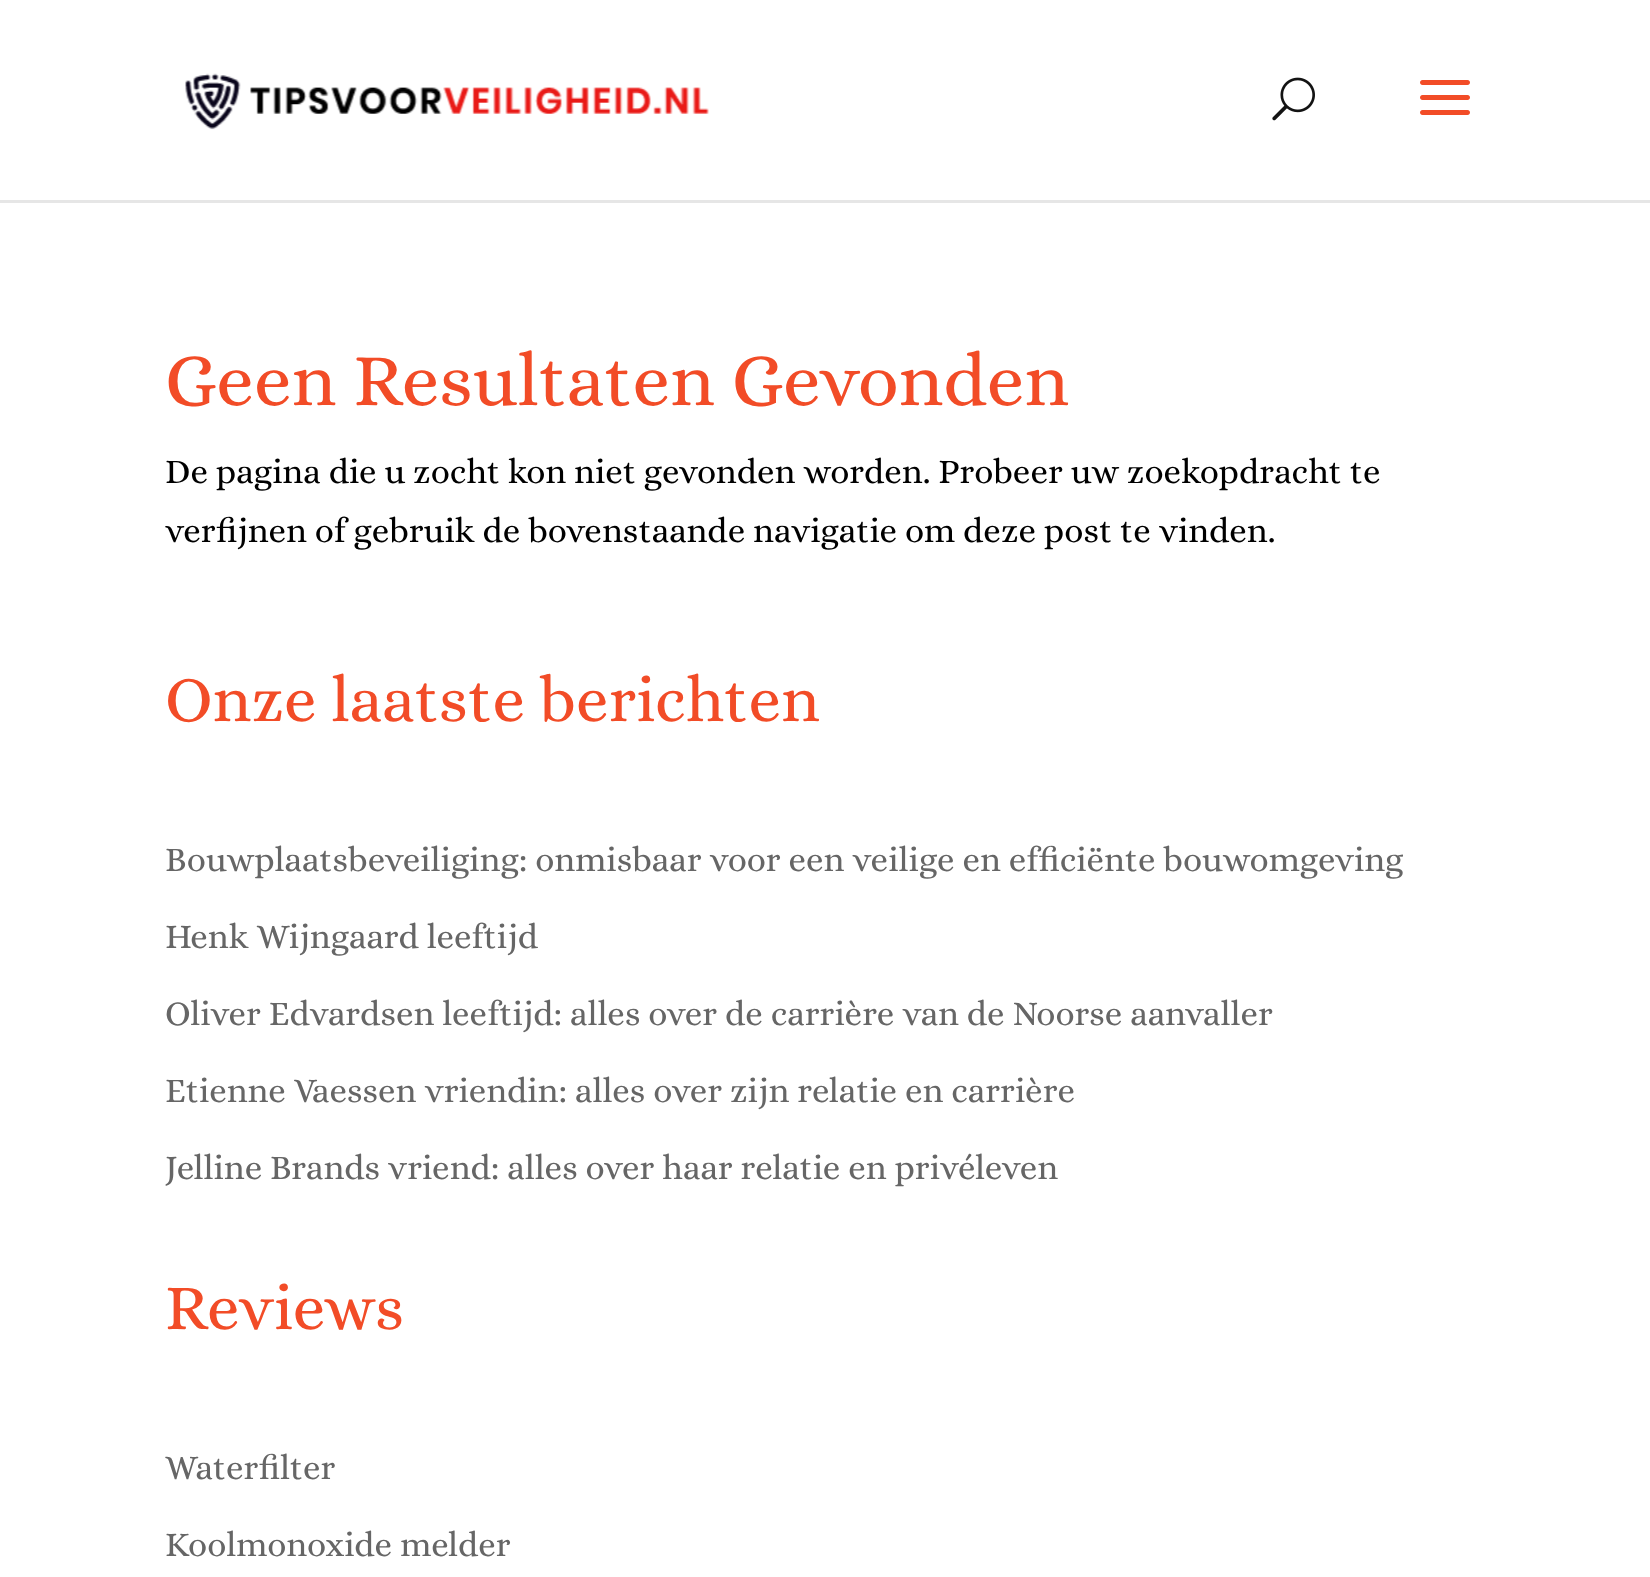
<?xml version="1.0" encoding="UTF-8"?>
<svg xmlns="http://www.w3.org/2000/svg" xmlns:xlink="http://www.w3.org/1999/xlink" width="1650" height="1577">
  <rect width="100%" height="100%" fill="#ffffff" />
  <rect y="200" width="1650" height="3" fill="#e6e6e6" />
  <image x="185" y="73" width="524" height="57" xlink:href="image1.png" />
  <image x="1272" y="77" width="43" height="44" xlink:href="image2.png" />
  <image x="1420" y="80" width="50" height="35" xlink:href="image3.png" />
  <text x="165" y="405" style="font-family: Alice; font-size: 75px; fill: #f24c27">Geen Resultaten Gevonden</text>
  <text x="165" y="483" style="font-family: Alice; font-size: 35px; fill: #000000">De pagina die u zocht kon niet gevonden worden. Probeer uw zoekopdracht te</text>
  <text x="165" y="542" style="font-family: Alice; font-size: 35px; fill: #000000">verfijnen of gebruik de bovenstaande navigatie om deze post te vinden.</text>
  <text x="165" y="721" style="font-family: Alice; font-size: 65px; fill: #f24c27">Onze laatste berichten</text>
  <text x="165" y="871" style="font-family: Alice; font-size: 35px; fill: #666666">Bouwplaatsbeveiliging: onmisbaar voor een veilige en efficiënte bouwomgeving</text>
  <text x="165" y="948" style="font-family: Alice; font-size: 35px; fill: #666666">Henk Wijngaard leeftijd</text>
  <text x="165" y="1025" style="font-family: Alice; font-size: 35px; fill: #666666">Oliver Edvardsen leeftijd: alles over de carrière van de Noorse aanvaller</text>
  <text x="165" y="1102" style="font-family: Alice; font-size: 35px; fill: #666666">Etienne Vaessen vriendin: alles over zijn relatie en carrière</text>
  <text x="165" y="1179" style="font-family: Alice; font-size: 35px; fill: #666666">Jelline Brands vriend: alles over haar relatie en privéleven</text>
  <text x="165" y="1329" style="font-family: Alice; font-size: 65px; fill: #f24c27">Reviews</text>
  <text x="165" y="1479" style="font-family: Alice; font-size: 35px; fill: #666666">Waterfilter</text>
  <text x="165" y="1556" style="font-family: Alice; font-size: 35px; fill: #666666">Koolmonoxide melder</text>
</svg>
